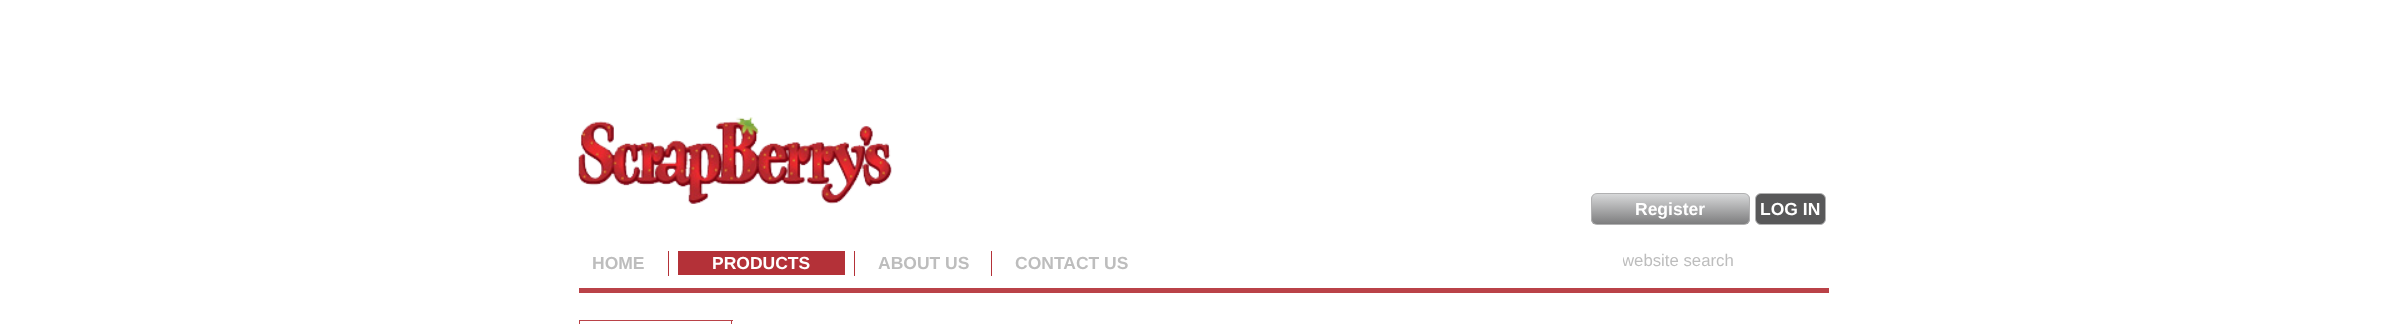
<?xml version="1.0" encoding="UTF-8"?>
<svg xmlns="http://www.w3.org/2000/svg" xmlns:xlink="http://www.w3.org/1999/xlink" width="2406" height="324">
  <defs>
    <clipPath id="clip1"><rect x="1591" y="193" width="159" height="32" rx="6" /></clipPath>
    <linearGradient id="g1" gradientUnits="userSpaceOnUse" x1="1671" y1="194" x2="1671" y2="224"><stop offset="0" stop-color="#d7d8d9" /><stop offset="1" stop-color="#7d7d7e" /></linearGradient>
    <clipPath id="clip2"><rect x="1623" y="251" width="152" height="19" /></clipPath>
  </defs>
  <rect width="100%" height="100%" fill="#ffffff" />
  <image x="578" y="117" width="314" height="87" xlink:href="image1.png" />
  <g clip-path="url(#clip1)">
    <rect x="1591" y="194" width="159" height="30" fill="url(#g1)" />
  </g>
  <rect x="1591.5" y="193.5" width="158" height="31" rx="5.5" fill="none" stroke="#b1b1b2" />
  <rect x="1755.5" y="193.5" width="70" height="31" rx="5.5" fill="#585859" stroke="#b1b1b2" />
  <rect x="579" y="288" width="1250" height="5" fill="#ba4248" />
  <rect x="668" y="251" width="1" height="25" fill="#b43138" />
  <rect x="678" y="251" width="167" height="24" fill="#b43138" />
  <rect x="854" y="251" width="1" height="25" fill="#b43138" />
  <rect x="991" y="251" width="1" height="25" fill="#b43138" />
  <rect x="579" y="320" width="154" height="1" fill="#ba4248" />
  <rect x="731" y="320" width="1" height="4" fill="#ba4248" />
  <rect x="579" y="320" width="1" height="4" fill="#ba4248" />
  <text x="1635" y="215" style="font-family: Liberation Sans; font-size: 17.5px; font-weight: bold; fill: #ffffff">Register</text>
  <text x="1760" y="215" style="font-family: Liberation Sans; font-size: 17.5px; font-weight: bold; fill: #ffffff">LOG IN</text>
  <text x="592" y="269" style="font-family: Liberation Sans; font-size: 17.5px; font-weight: bold; fill: #bdbdbd">HOME</text>
  <text x="712" y="269" style="font-family: Liberation Sans; font-size: 17.5px; font-weight: bold; fill: #ffffff">PRODUCTS</text>
  <text x="878" y="269" style="font-family: Liberation Sans; font-size: 17.5px; font-weight: bold; fill: #bdbdbd">ABOUT US</text>
  <text x="1015" y="269" style="font-family: Liberation Sans; font-size: 17.5px; font-weight: bold; fill: #bdbdbd">CONTACT US</text>
  <g clip-path="url(#clip2)">
    <text x="1622" y="266" style="font-family: Liberation Sans; font-size: 16.75px; fill: #bdbdbd">website search</text>
  </g>
</svg>
